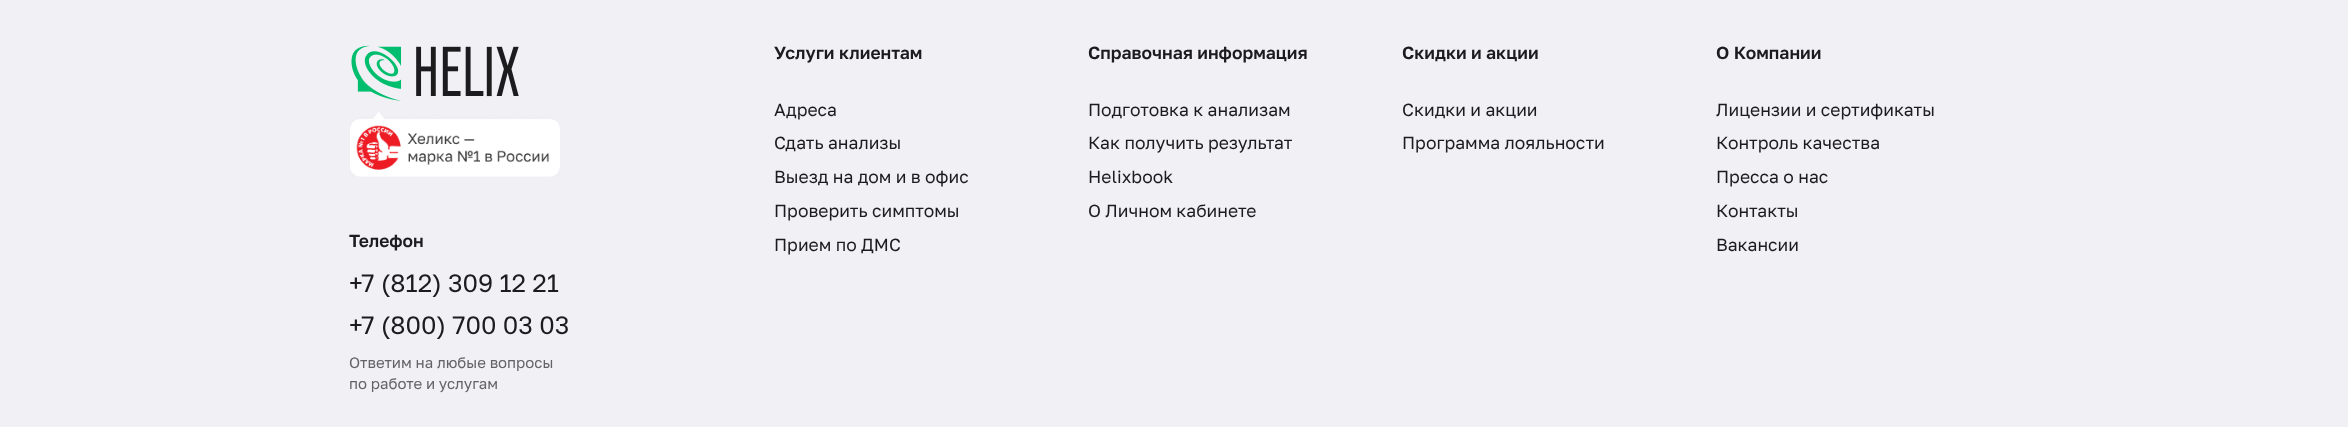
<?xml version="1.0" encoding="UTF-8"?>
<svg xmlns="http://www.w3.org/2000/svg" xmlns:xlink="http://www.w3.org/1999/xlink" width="2348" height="427">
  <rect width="100%" height="100%" fill="#f0f0f5" />
  <image x="351" y="45" width="168" height="56" xlink:href="image1.png" />
  <image x="350" y="112" width="210" height="65" xlink:href="image2.png" />
  <text x="774" y="59" style="font-family: Golos Text; font-size: 17.5px; font-weight: 600; fill: #1c1c1e">Услуги клиентам</text>
  <text x="774" y="116" style="font-family: Golos Text; font-size: 17.5px; fill: #1c1c1e">Адреса</text>
  <text x="774" y="149" style="font-family: Golos Text; font-size: 17.5px; fill: #1c1c1e">Сдать анализы</text>
  <text x="774" y="183" style="font-family: Golos Text; font-size: 17.5px; fill: #1c1c1e">Выезд на дом и в офис</text>
  <text x="774" y="217" style="font-family: Golos Text; font-size: 17.5px; fill: #1c1c1e">Проверить симптомы</text>
  <text x="774" y="251" style="font-family: Golos Text; font-size: 17.5px; fill: #1c1c1e">Прием по ДМС</text>
  <text x="1088" y="59" style="font-family: Golos Text; font-size: 17.5px; font-weight: 600; fill: #1c1c1e">Справочная информация</text>
  <text x="1088" y="116" style="font-family: Golos Text; font-size: 17.5px; fill: #1c1c1e">Подготовка к анализам</text>
  <text x="1088" y="149" style="font-family: Golos Text; font-size: 17.5px; fill: #1c1c1e">Как получить результат</text>
  <text x="1088" y="183" style="font-family: Golos Text; font-size: 17.5px; fill: #1c1c1e">Helixbook</text>
  <text x="1088" y="217" style="font-family: Golos Text; font-size: 17.5px; fill: #1c1c1e">О Личном кабинете</text>
  <text x="1402" y="59" style="font-family: Golos Text; font-size: 17.5px; font-weight: 600; fill: #1c1c1e">Скидки и акции</text>
  <text x="1402" y="116" style="font-family: Golos Text; font-size: 17.5px; fill: #1c1c1e">Скидки и акции</text>
  <text x="1402" y="149" style="font-family: Golos Text; font-size: 17.5px; fill: #1c1c1e">Программа лояльности</text>
  <text x="1716" y="59" style="font-family: Golos Text; font-size: 17.5px; font-weight: 600; fill: #1c1c1e">О Компании</text>
  <text x="1716" y="116" style="font-family: Golos Text; font-size: 17.5px; fill: #1c1c1e">Лицензии и сертификаты</text>
  <text x="1716" y="149" style="font-family: Golos Text; font-size: 17.5px; fill: #1c1c1e">Контроль качества</text>
  <text x="1716" y="183" style="font-family: Golos Text; font-size: 17.5px; fill: #1c1c1e">Пресса о нас</text>
  <text x="1716" y="217" style="font-family: Golos Text; font-size: 17.5px; fill: #1c1c1e">Контакты</text>
  <text x="1716" y="251" style="font-family: Golos Text; font-size: 17.5px; fill: #1c1c1e">Вакансии</text>
  <text x="349" y="247" style="font-family: Golos Text; font-size: 17.5px; font-weight: 600; fill: #1c1c1e">Телефон</text>
  <text x="349" y="292" style="font-family: Golos Text; font-size: 25px; fill: #1c1c1e">+7 (812) 309 12 21</text>
  <text x="349" y="334" style="font-family: Golos Text; font-size: 25px; fill: #1c1c1e">+7 (800) 700 03 03</text>
  <text x="349" y="368" style="font-family: Golos Text; font-size: 15px; fill: #636366">Ответим на любые вопросы</text>
  <text x="349" y="389" style="font-family: Golos Text; font-size: 15px; fill: #636366">по работе и услугам</text>
</svg>
